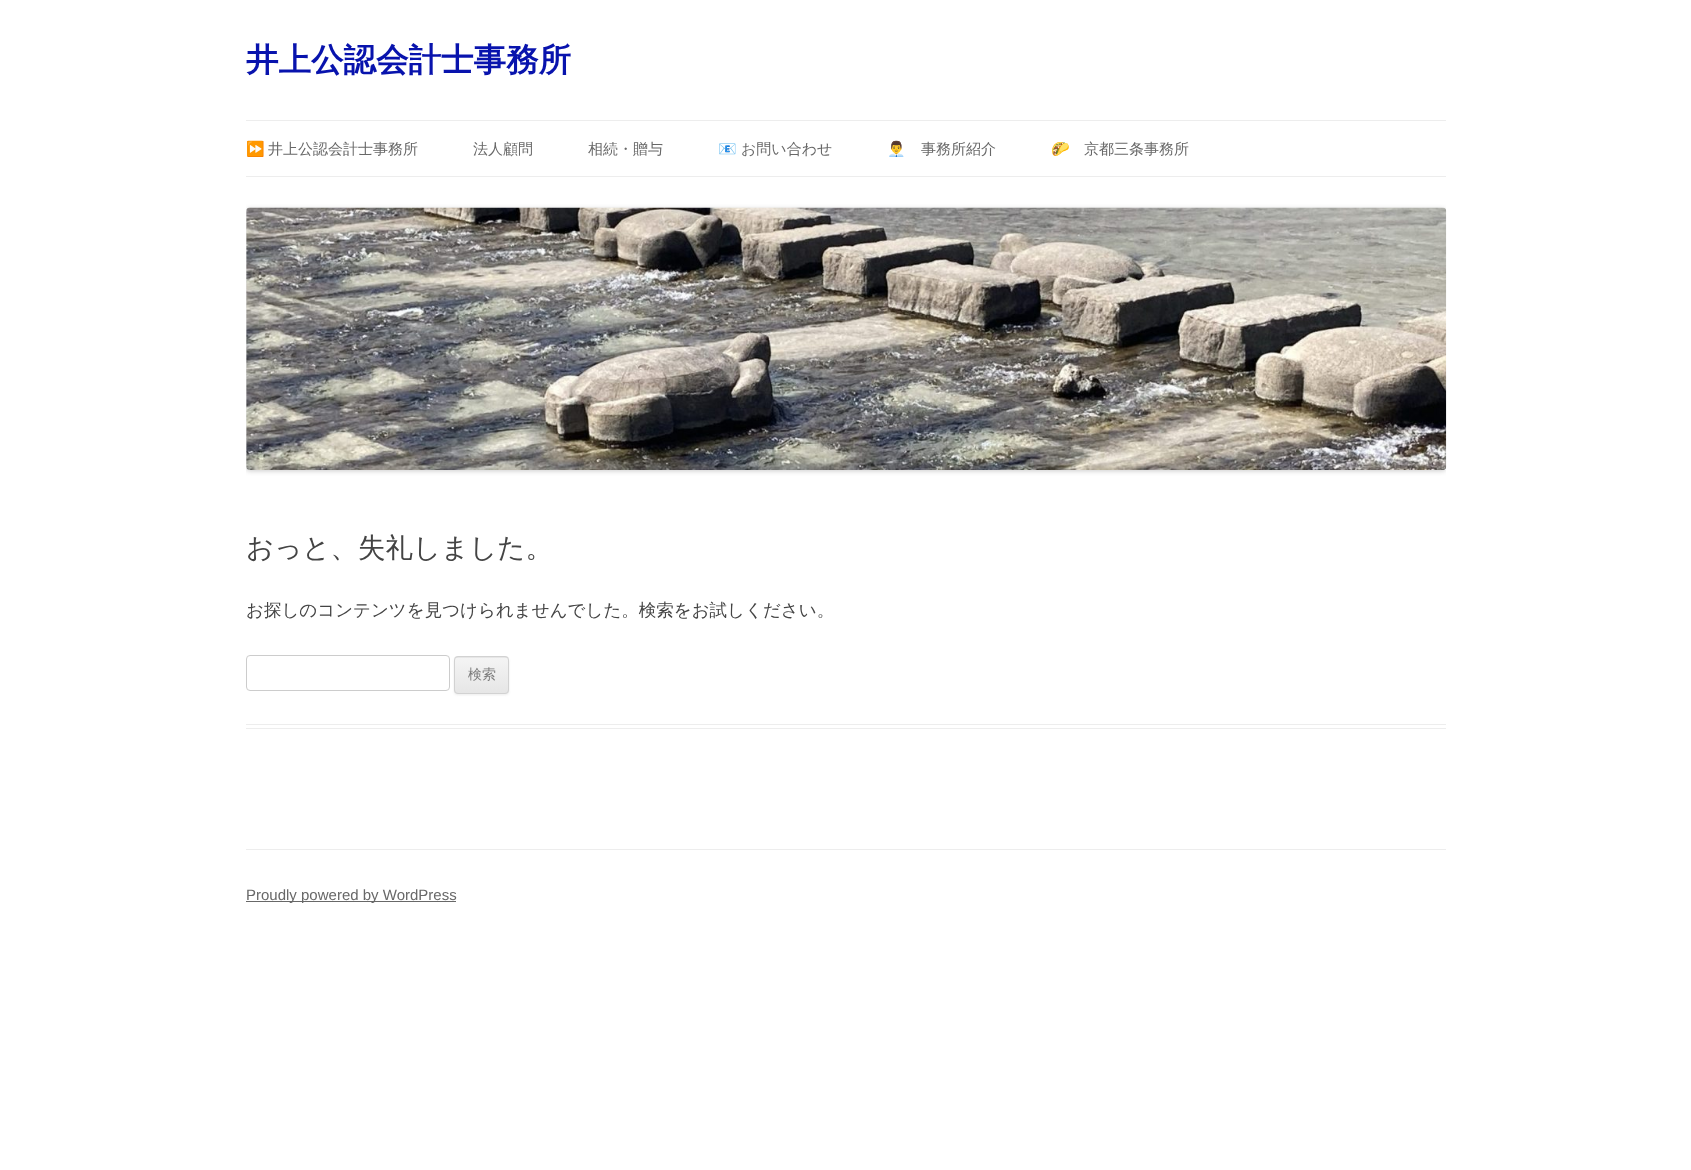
<?xml version="1.0" encoding="UTF-8"?>
<svg xmlns="http://www.w3.org/2000/svg" xmlns:xlink="http://www.w3.org/1999/xlink" width="1691" height="1170">
  <defs>
    <clipPath id="clip1"><rect x="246" y="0" width="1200" height="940" /></clipPath>
    <clipPath id="clip2"><rect x="454" y="656" width="55" height="38" rx="4" /></clipPath>
    <linearGradient id="g1" gradientUnits="userSpaceOnUse" x1="481" y1="658" x2="481" y2="693"><stop offset="0" stop-color="#f4f4f4" /><stop offset="1" stop-color="#e6e6e6" /></linearGradient>
    <clipPath id="clip3"><rect x="246" width="1200" height="940" /></clipPath>
  </defs>
  <rect width="100%" height="100%" fill="#ffffff" />
  <rect x="246" y="120" width="1200" height="1" fill="#ededed" />
  <rect x="246" y="176" width="1200" height="1" fill="#ededed" />
  <g clip-path="url(#clip1)">
    <rect x="246" y="209" width="1200" height="262" rx="4" fill="#000000" fill-opacity="0.2" filter="blur(2.5px)" />
  </g>
  <image x="246" y="207" width="1201" height="263" xlink:href="image1.png" />
  <rect x="246" y="724" width="1200" height="1" fill="#ededed" />
  <rect x="246" y="728" width="1200" height="1" fill="#ededed" />
  <rect x="246.5" y="655.5" width="203" height="35" rx="3.5" fill="none" stroke="#cccccc" />
  <rect x="454" y="658" width="55" height="37" rx="4" fill="#404040" fill-opacity="0.1" filter="blur(1px)" />
  <rect x="454" y="656" width="55" height="38" rx="4" fill="#e6e6e6" />
  <g clip-path="url(#clip2)">
    <rect x="454" y="658" width="55" height="35" fill="url(#g1)" />
  </g>
  <rect x="454.5" y="656.5" width="54" height="37" rx="3.5" fill="none" stroke="#d2d2d2" />
  <rect x="246" y="849" width="1200" height="1" fill="#ededed" />
  <rect x="246" y="901" width="210" height="1" fill="#686868" />
  <text x="246" y="71" style="font-family: WenQuanYi Zen Hei; font-size: 32.5px; font-weight: bold; fill: #0813ad">井上公認会計士事務所</text>
  <g clip-path="url(#clip3)">
    <text x="246" y="154" style="font-family: Noto Color Emoji; font-size: 15px; fill: #686868">⏩</text>
  </g>
  <text x="268" y="154" style="font-family: WenQuanYi Zen Hei; font-size: 15px; font-weight: 500; fill: #686868">井上公認会計士事務所</text>
  <text x="473" y="154" style="font-family: WenQuanYi Zen Hei; font-size: 15px; font-weight: 500; fill: #686868">法人顧問</text>
  <text x="588" y="154" style="font-family: WenQuanYi Zen Hei; font-size: 15px; font-weight: 500; fill: #686868">相続・贈与</text>
  <text x="718" y="154" style="font-family: Noto Color Emoji; font-size: 15px; fill: #686868">📧</text>
  <text x="741" y="154" style="font-family: WenQuanYi Zen Hei; font-size: 15px; font-weight: 500; fill: #686868">お問い合わせ</text>
  <text x="887" y="154" style="font-family: Noto Color Emoji; font-size: 15px; fill: #686868">👨‍💼</text>
  <text x="921" y="154" style="font-family: WenQuanYi Zen Hei; font-size: 15px; font-weight: 500; fill: #686868">事務所紹介</text>
  <text x="1051" y="154" style="font-family: Noto Color Emoji; font-size: 15px; fill: #686868">🌮</text>
  <text x="1084" y="154" style="font-family: WenQuanYi Zen Hei; font-size: 15px; font-weight: 500; fill: #686868">京都三条事務所</text>
  <text x="246" y="557" style="font-family: WenQuanYi Zen Hei; font-size: 27.5px; font-weight: 500; fill: #444444">おっと、失礼しました。</text>
  <text x="246" y="616" style="font-family: WenQuanYi Zen Hei; font-size: 17.5px; font-weight: 500; fill: #444444">お探しのコンテンツを見つけられませんでした。検索をお試しください。</text>
  <text x="468" y="679" style="font-family: WenQuanYi Zen Hei; font-size: 14px; font-weight: 500; fill: #7c7c7c">検索</text>
  <text x="246" y="900" style="font-family: Liberation Sans; font-size: 15px; fill: #686868">Proudly powered by WordPress</text>
</svg>
